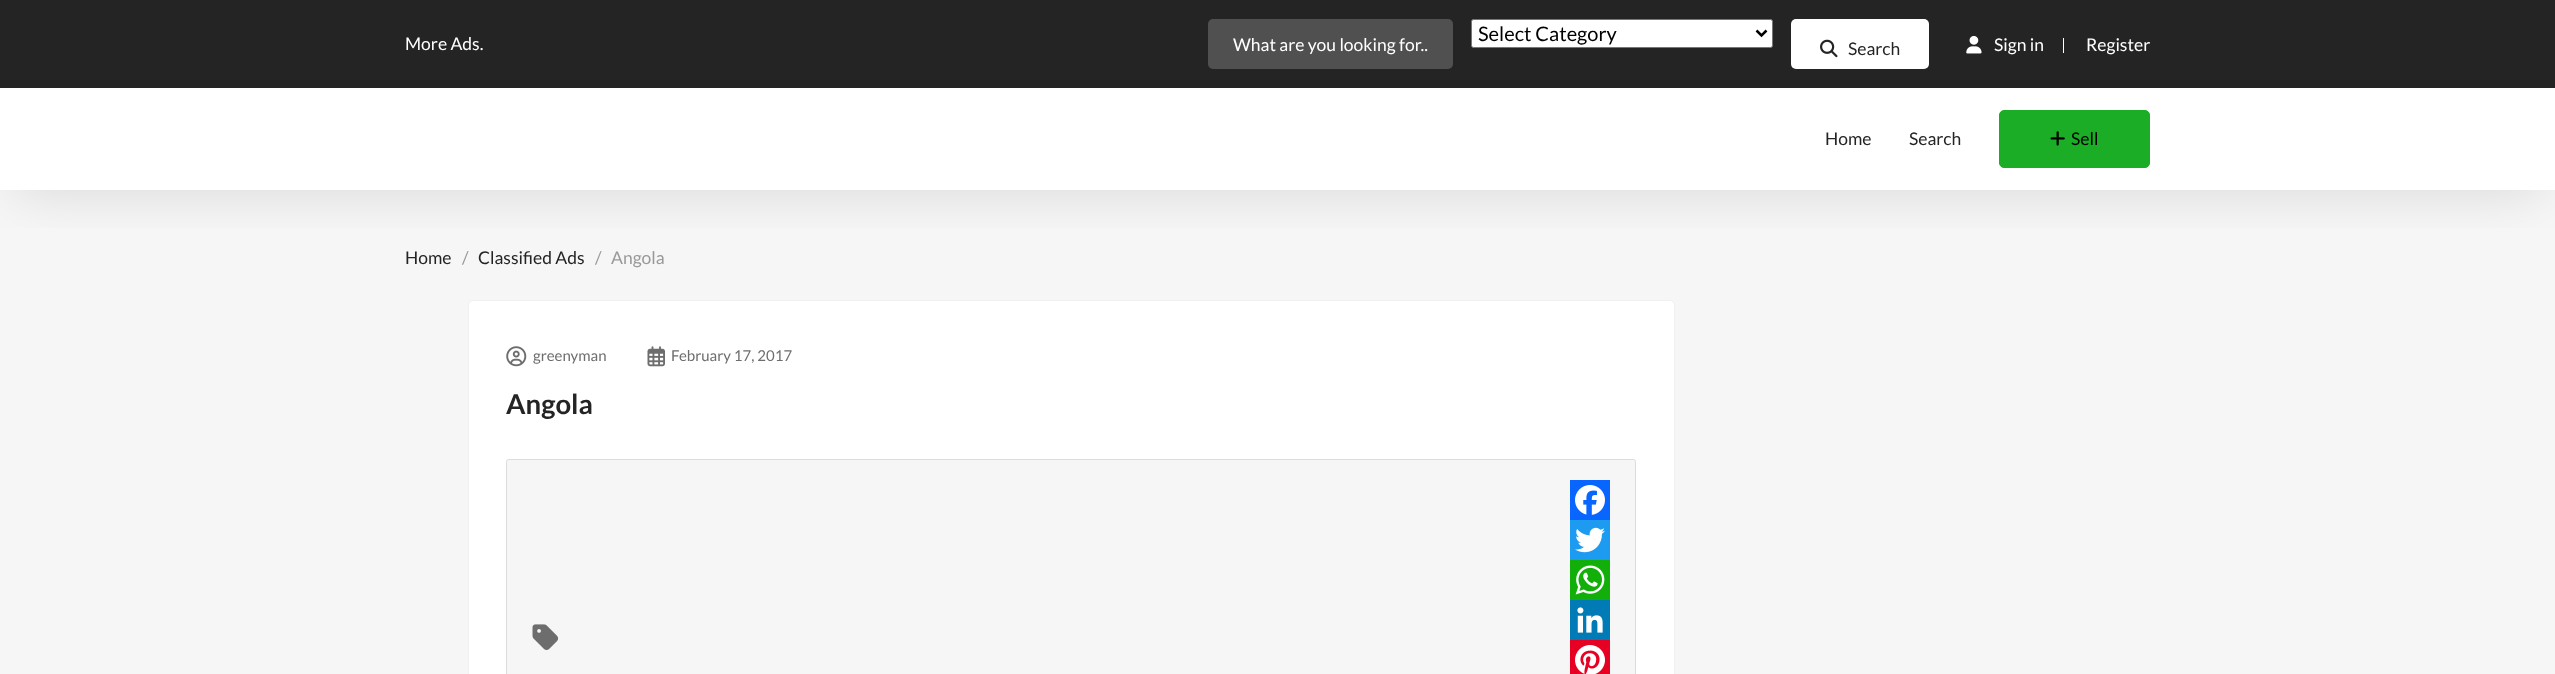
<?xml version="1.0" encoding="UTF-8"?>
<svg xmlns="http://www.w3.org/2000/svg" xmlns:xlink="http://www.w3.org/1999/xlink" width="2555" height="674">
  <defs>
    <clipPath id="clip1"><rect x="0" y="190" width="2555" height="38" /></clipPath>
  </defs>
  <rect width="100%" height="100%" fill="#f6f6f6" />
  <rect width="2555" height="88" fill="#242424" />
  <rect x="1208" y="19" width="245" height="50" rx="5" fill="#505050" />
  <rect x="1471.5" y="19.5" width="301" height="28" rx="2" fill="#ffffff" stroke="#767676" />
  <path d="M 1756.5 30.5 l 5 5 l 5 -5" fill="none" stroke="#000000" stroke-width="2.5" />
  <rect x="1791" y="19" width="138" height="50" rx="5" fill="#ffffff" />
  <image x="1820" y="39" width="18" height="19" xlink:href="image1.png" />
  <image x="1966" y="35" width="16" height="19" xlink:href="image2.png" />
  <rect x="2063" y="38" width="1" height="15" fill="#ffffff" />
  <rect y="88" width="2555" height="102" fill="#ffffff" />
  <g clip-path="url(#clip1)">
    <rect x="6" y="134" width="2543" height="62" rx="31" fill="#000000" fill-opacity="0.1" filter="blur(25px)" />
  </g>
  <rect x="1999.5" y="110.5" width="150" height="57" rx="4.5" fill="#1bad25" stroke="#1bad25" />
  <image x="2050" y="131" width="15" height="15" xlink:href="image3.png" />
  <rect x="468.5" y="300.5" width="1206" height="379" rx="4.5" fill="#ffffff" stroke="#f0f0f0" />
  <image x="506" y="346" width="21" height="21" xlink:href="image4.png" />
  <image x="647" y="346" width="18" height="21" xlink:href="image5.png" />
  <rect x="506.5" y="459.5" width="1129" height="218" rx="2" fill="#f6f6f6" stroke="#dcdcdc" />
  <image x="532" y="624" width="27" height="26" xlink:href="image6.png" />
  <rect x="1570" y="480" width="40" height="40" fill="#0866ff" />
  <image x="1575" y="485" width="30" height="30" xlink:href="image7.png" />
  <rect x="1570" y="520" width="40" height="40" fill="#1d9bf0" />
  <image x="1575" y="527" width="30" height="26" xlink:href="image8.png" />
  <rect x="1570" y="560" width="40" height="40" fill="#12af0a" />
  <image x="1575" y="565" width="30" height="30" xlink:href="image9.png" />
  <rect x="1570" y="600" width="40" height="40" fill="#007bb5" />
  <image x="1577" y="607" width="26" height="26" xlink:href="image10.png" />
  <rect x="1570" y="640" width="40" height="34" fill="#e60023" />
  <image x="1575" y="645" width="30" height="29" xlink:href="image11.png" />
  <text x="405" y="50" style="font-family: Lato; font-size: 17.5px; fill: #ffffff">More Ads.</text>
  <text x="1233" y="51" style="font-family: Lato; font-size: 17.5px; fill: #ffffff">What are you looking for..</text>
  <text x="1478" y="41" style="font-family: Lato; font-size: 20px; fill: #000000">Select Category</text>
  <text x="1848" y="55" style="font-family: Lato; font-size: 17.5px; fill: #242424">Search</text>
  <text x="1994" y="51" style="font-family: Lato; font-size: 17.5px; fill: #ffffff">Sign in</text>
  <text x="2086" y="51" style="font-family: Lato; font-size: 17.5px; fill: #ffffff">Register</text>
  <text x="1825" y="145" style="font-family: Lato; font-size: 17.5px; fill: #242424">Home</text>
  <text x="1909" y="145" style="font-family: Lato; font-size: 17.5px; fill: #242424">Search</text>
  <text x="2071" y="145" style="font-family: Lato; font-size: 17.5px; fill: #000000">Sell</text>
  <text x="405" y="264" style="font-family: Lato; font-size: 17.5px; fill: #242424">Home</text>
  <text x="462" y="264" style="font-family: Lato; font-size: 17.5px; fill: #999999">/</text>
  <text x="478" y="264" style="font-family: Lato; font-size: 17.5px; fill: #242424">Classified Ads</text>
  <text x="595" y="264" style="font-family: Lato; font-size: 17.5px; fill: #999999">/</text>
  <text x="611" y="264" style="font-family: Lato; font-size: 17.5px; fill: #999999">Angola</text>
  <text x="533" y="361" style="font-family: Lato; font-size: 15px; fill: #6d6d6d">greenyman</text>
  <text x="671" y="361" style="font-family: Lato; font-size: 15px; fill: #6d6d6d">February 17, 2017</text>
  <text x="506" y="414" style="font-family: Lato; font-size: 27.5px; font-weight: bold; fill: #242424">Angola</text>
</svg>
